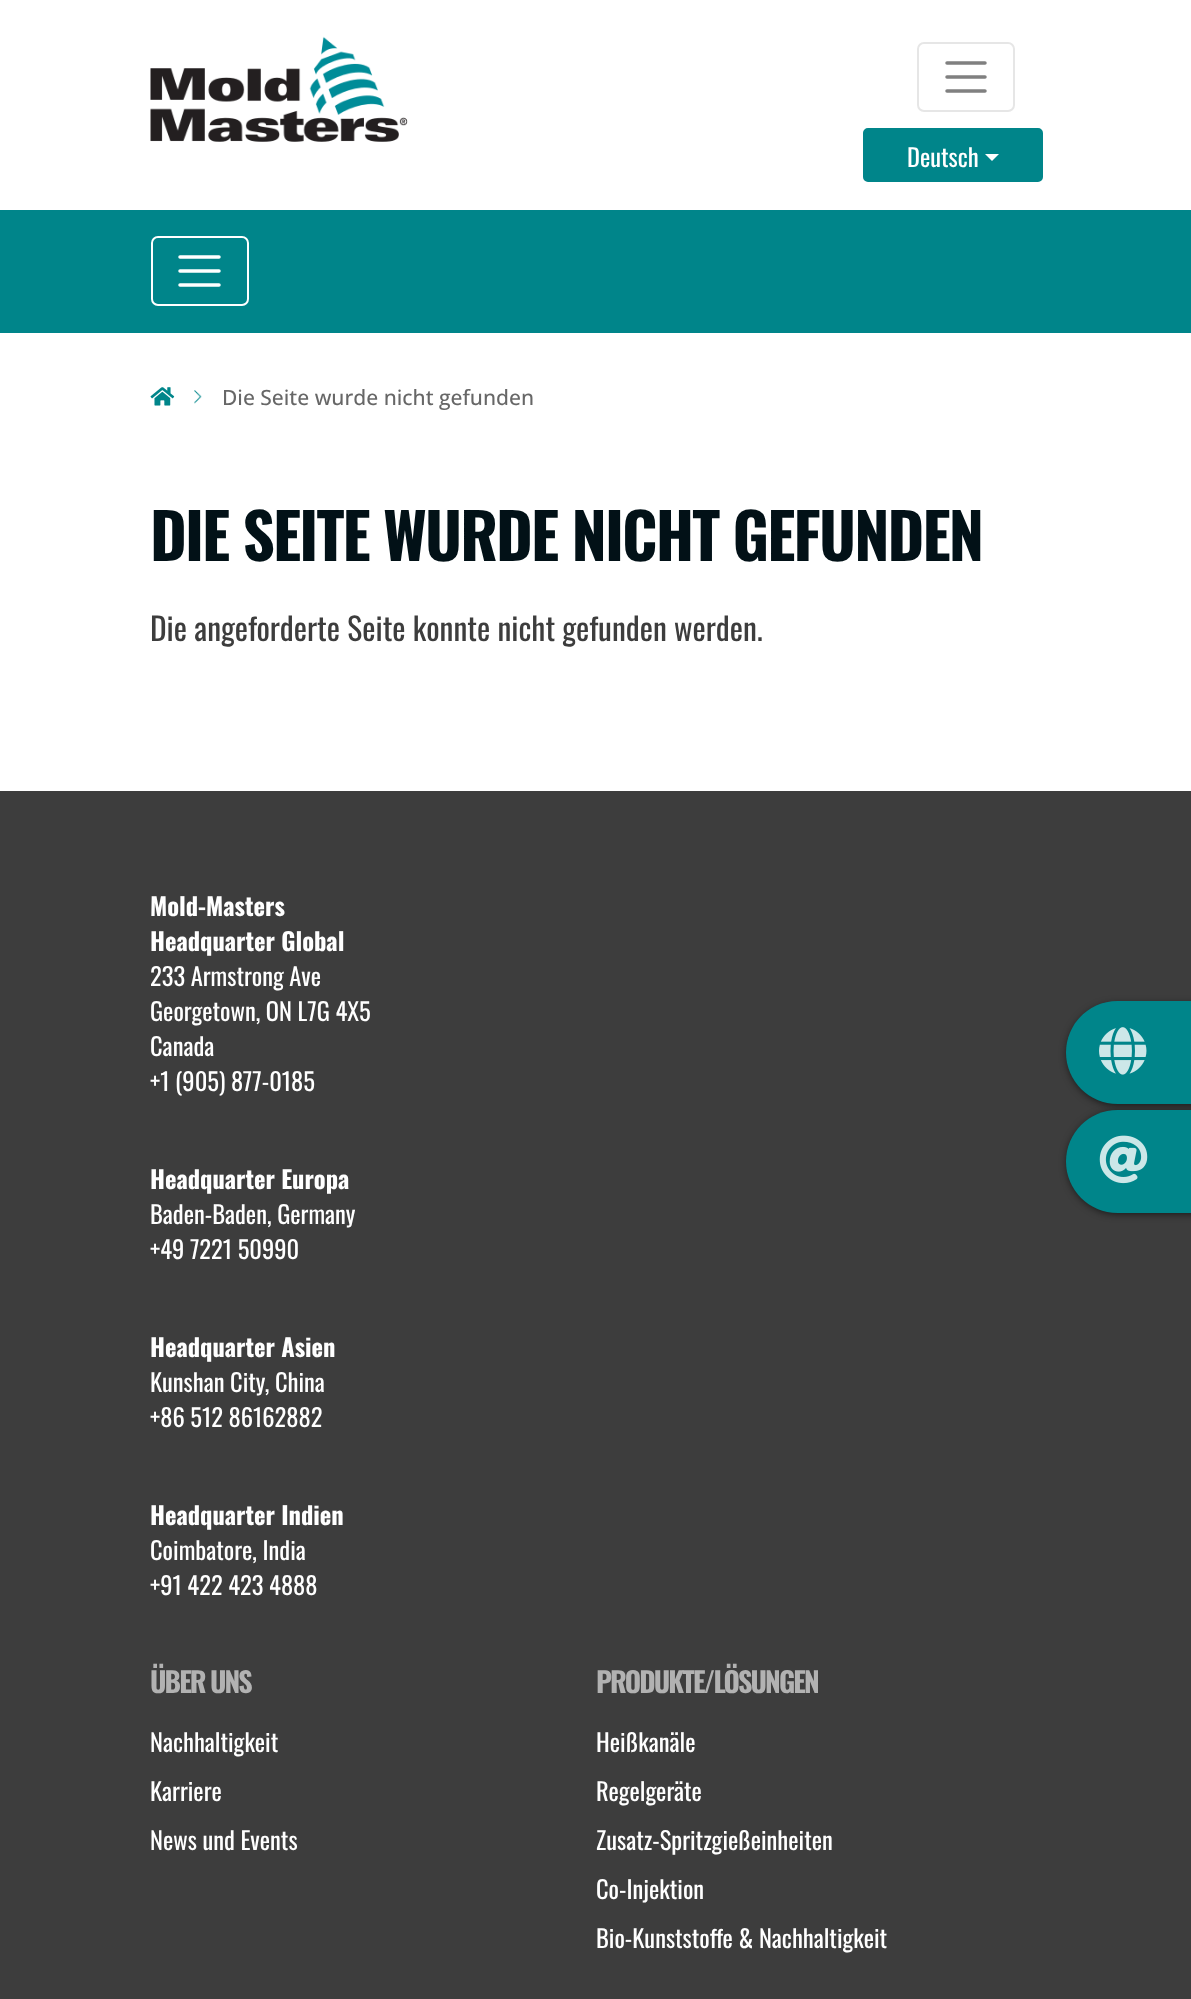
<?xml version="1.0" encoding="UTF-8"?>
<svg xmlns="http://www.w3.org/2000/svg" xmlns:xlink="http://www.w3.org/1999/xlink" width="1191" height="1999">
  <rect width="100%" height="100%" fill="#ffffff" />
  <image x="150" y="36" width="258" height="106" xlink:href="image1.png" />
  <rect x="918" y="43" width="96" height="68" rx="6" fill="none" stroke="#e6e6e6" stroke-width="2" />
  <path d="M 947 63 h 38 m -38 14 h 38 m -38 14 h 38" fill="none" stroke="#808080" stroke-width="3.5" stroke-linecap="round" />
  <rect x="864" y="129" width="178" height="52" rx="4" fill="#00858a" stroke="#00858a" stroke-width="2" />
  <path d="M 985 154 h 14 l -7 7 z" fill="#ffffff" />
  <rect y="210" width="1191" height="123" fill="#00858a" />
  <rect x="152" y="237" width="96" height="68" rx="6" fill="none" stroke="#ffffff" stroke-width="2" />
  <path d="M 180 257 h 39 m -39 14 h 39 m -39 14 h 39" fill="none" stroke="#ffffff" stroke-width="3.5" stroke-linecap="round" />
  <image x="150" y="387" width="25" height="19" xlink:href="image2.png" />
  <image x="194" y="390" width="8" height="14" xlink:href="image3.png" />
  <rect y="791" width="1191" height="1208" fill="#3d3d3d" />
  <rect x="1068" y="1005" width="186" height="99" rx="49.5" fill="#000000" fill-opacity="0.75" filter="blur(4.5px)" />
  <path d="M 1117.5 1001 h 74.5 v 103 h -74.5 c -28.5 0 -51.5 -23 -51.5 -51.5 c 0 -28.5 23 -51.5 51.5 -51.5 z" fill="#00858a" />
  <image x="1099" y="1027" width="48" height="48" xlink:href="image4.png" />
  <rect x="1068" y="1113" width="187" height="100" rx="50" fill="#000000" fill-opacity="0.75" filter="blur(4.5px)" />
  <path d="M 1117.5 1110 h 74.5 v 103 h -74.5 c -28.5 0 -51.5 -23 -51.5 -51.5 c 0 -28.5 23 -51.5 51.5 -51.5 z" fill="#00858a" />
  <image x="1099" y="1135" width="49" height="49" xlink:href="image5.png" />
  <text x="907" y="167" style="font-family: Oswald; font-size: 24.5px; fill: #ffffff">Deutsch</text>
  <text x="222" y="405" style="font-family: Open Sans; font-size: 21px; font-weight: 500; fill: #676767">Die Seite wurde nicht gefunden</text>
  <text x="150" y="561" style="font-family: Oswald; font-size: 63px; font-weight: bold; letter-spacing: -1.9px; fill: #021117">DIE SEITE WURDE NICHT GEFUNDEN</text>
  <text x="150" y="641" style="font-family: Oswald; font-size: 31.5px; fill: #3d3d3d">Die angeforderte Seite konnte nicht gefunden werden.</text>
  <text x="150" y="916" style="font-family: Oswald; font-size: 24.5px; font-weight: bold; fill: #ffffff">Mold-Masters</text>
  <text x="150" y="951" style="font-family: Oswald; font-size: 24.5px; font-weight: bold; fill: #ffffff">Headquarter Global</text>
  <text x="150" y="986" style="font-family: Oswald; font-size: 24.5px; fill: #ffffff">233 Armstrong Ave</text>
  <text x="150" y="1021" style="font-family: Oswald; font-size: 24.5px; fill: #ffffff">Georgetown, ON L7G 4X5</text>
  <text x="150" y="1056" style="font-family: Oswald; font-size: 24.5px; fill: #ffffff">Canada</text>
  <text x="150" y="1091" style="font-family: Oswald; font-size: 24.5px; fill: #ffffff">+1 (905) 877-0185</text>
  <text x="150" y="1189" style="font-family: Oswald; font-size: 24.5px; font-weight: bold; fill: #ffffff">Headquarter Europa</text>
  <text x="150" y="1224" style="font-family: Oswald; font-size: 24.5px; fill: #ffffff">Baden-Baden, Germany</text>
  <text x="150" y="1259" style="font-family: Oswald; font-size: 24.5px; fill: #ffffff">+49 7221 50990</text>
  <text x="150" y="1357" style="font-family: Oswald; font-size: 24.5px; font-weight: bold; fill: #ffffff">Headquarter Asien</text>
  <text x="150" y="1392" style="font-family: Oswald; font-size: 24.5px; fill: #ffffff">Kunshan City, China</text>
  <text x="150" y="1427" style="font-family: Oswald; font-size: 24.5px; fill: #ffffff">+86 512 86162882</text>
  <text x="150" y="1525" style="font-family: Oswald; font-size: 24.5px; font-weight: bold; fill: #ffffff">Headquarter Indien</text>
  <text x="150" y="1560" style="font-family: Oswald; font-size: 24.5px; fill: #ffffff">Coimbatore, India</text>
  <text x="150" y="1595" style="font-family: Oswald; font-size: 24.5px; fill: #ffffff">+91 422 423 4888</text>
  <text x="150" y="1693" style="font-family: Oswald; font-size: 28px; font-weight: bold; letter-spacing: -1.9px; fill: #b2b2b2">ÜBER UNS</text>
  <text x="150" y="1752" style="font-family: Oswald; font-size: 24.5px; fill: #ffffff">Nachhaltigkeit</text>
  <text x="150" y="1801" style="font-family: Oswald; font-size: 24.5px; fill: #ffffff">Karriere</text>
  <text x="150" y="1850" style="font-family: Oswald; font-size: 24.5px; fill: #ffffff">News und Events</text>
  <text x="596" y="1693" style="font-family: Oswald; font-size: 28px; font-weight: bold; letter-spacing: -1.9px; fill: #b2b2b2">PRODUKTE/LÖSUNGEN</text>
  <text x="596" y="1752" style="font-family: Oswald; font-size: 24.5px; fill: #ffffff">Heißkanäle</text>
  <text x="596" y="1801" style="font-family: Oswald; font-size: 24.5px; fill: #ffffff">Regelgeräte</text>
  <text x="596" y="1850" style="font-family: Oswald; font-size: 24.5px; fill: #ffffff">Zusatz-Spritzgießeinheiten</text>
  <text x="596" y="1899" style="font-family: Oswald; font-size: 24.5px; fill: #ffffff">Co-Injektion</text>
  <text x="596" y="1948" style="font-family: Oswald; font-size: 24.5px; fill: #ffffff">Bio-Kunststoffe &amp; Nachhaltigkeit</text>
</svg>
